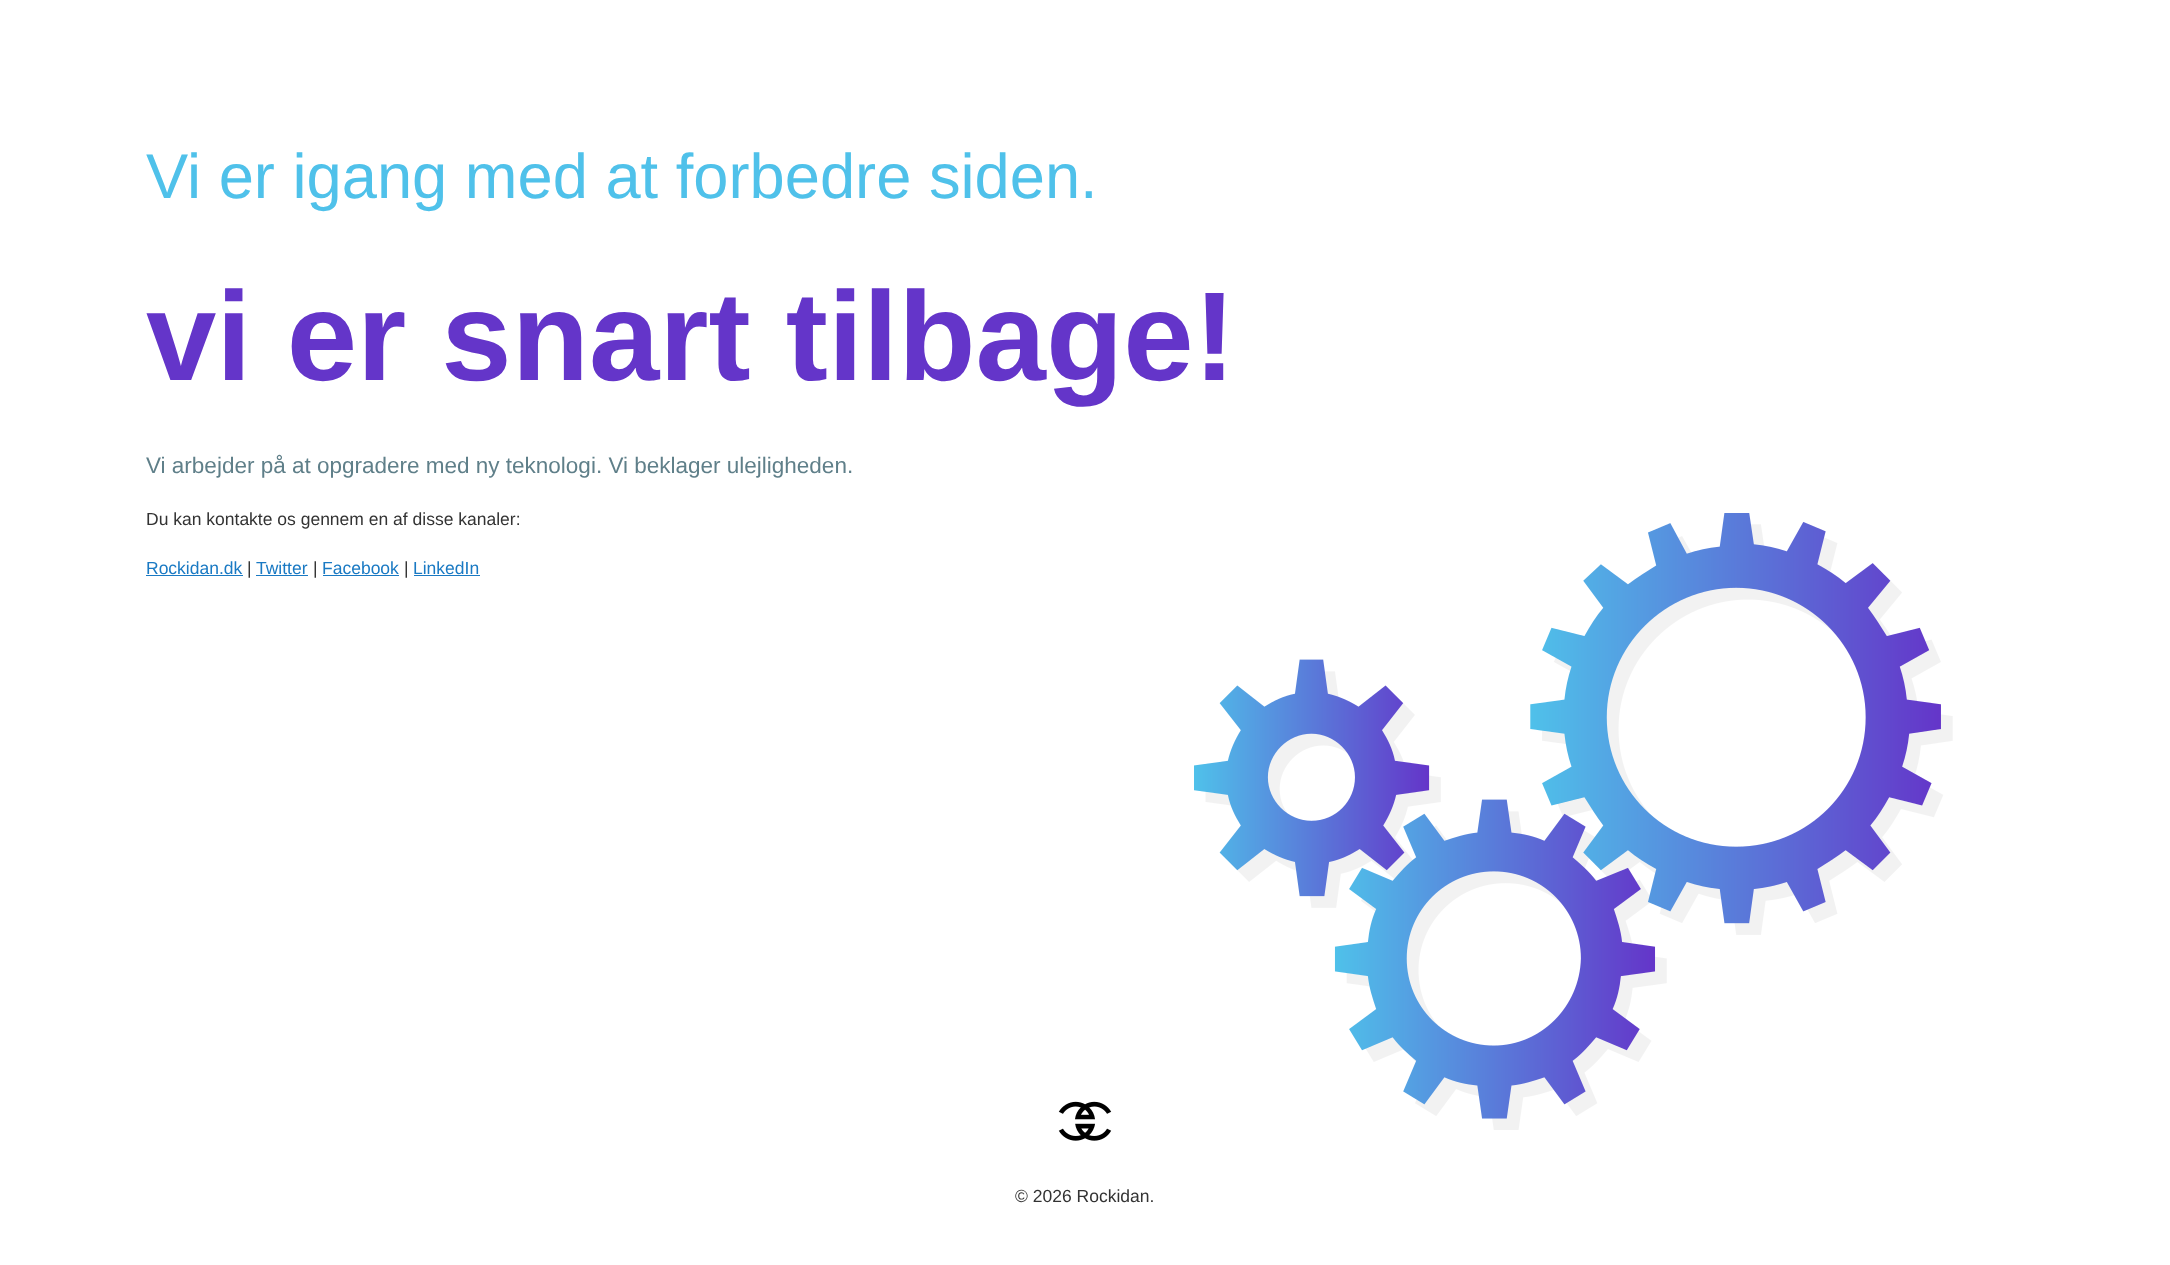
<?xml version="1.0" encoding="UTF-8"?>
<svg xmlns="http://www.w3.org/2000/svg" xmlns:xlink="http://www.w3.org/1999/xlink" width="2170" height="1265">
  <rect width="100%" height="100%" fill="#ffffff" />
  <rect x="146" y="575" width="97" height="1" fill="#1979c3" />
  <rect x="256" y="575" width="52" height="1" fill="#1979c3" />
  <rect x="323" y="575" width="76" height="1" fill="#1979c3" />
  <rect x="414" y="575" width="66" height="1" fill="#1979c3" />
  <image x="1194" y="513" width="759" height="617" xlink:href="image1.png" />
  <image x="1058" y="1101" width="54" height="40" xlink:href="image2.png" />
  <text x="146" y="198" style="font-family: Liberation Sans; font-size: 63.25px; fill: #4fc1ea">Vi er igang med at forbedre siden.</text>
  <text x="146" y="380" style="font-family: Liberation Sans; font-size: 126.5px; font-weight: bold; fill: #6435c9">vi er snart tilbage!</text>
  <text x="146" y="473" style="font-family: Liberation Sans; font-size: 22.5px; fill: #5f7f89">Vi arbejder på at opgradere med ny teknologi. Vi beklager ulejligheden.</text>
  <text x="146" y="525" style="font-family: Liberation Sans; font-size: 17.5px; fill: #333333">Du kan kontakte os gennem en af disse kanaler:</text>
  <text x="146" y="574" style="font-family: Liberation Sans; font-size: 17.5px; fill: #1979c3">Rockidan.dk</text>
  <text x="247" y="574" style="font-family: Liberation Sans; font-size: 17.5px; fill: #333333">|</text>
  <text x="256" y="574" style="font-family: Liberation Sans; font-size: 17.5px; fill: #1979c3">Twitter</text>
  <text x="313" y="574" style="font-family: Liberation Sans; font-size: 17.5px; fill: #333333">|</text>
  <text x="322" y="574" style="font-family: Liberation Sans; font-size: 17.5px; fill: #1979c3">Facebook</text>
  <text x="404" y="574" style="font-family: Liberation Sans; font-size: 17.5px; fill: #333333">|</text>
  <text x="413" y="574" style="font-family: Liberation Sans; font-size: 17.5px; fill: #1979c3">LinkedIn</text>
  <text x="1015" y="1202" style="font-family: Liberation Sans; font-size: 17.5px; fill: #333333">© 2026 Rockidan.</text>
</svg>
